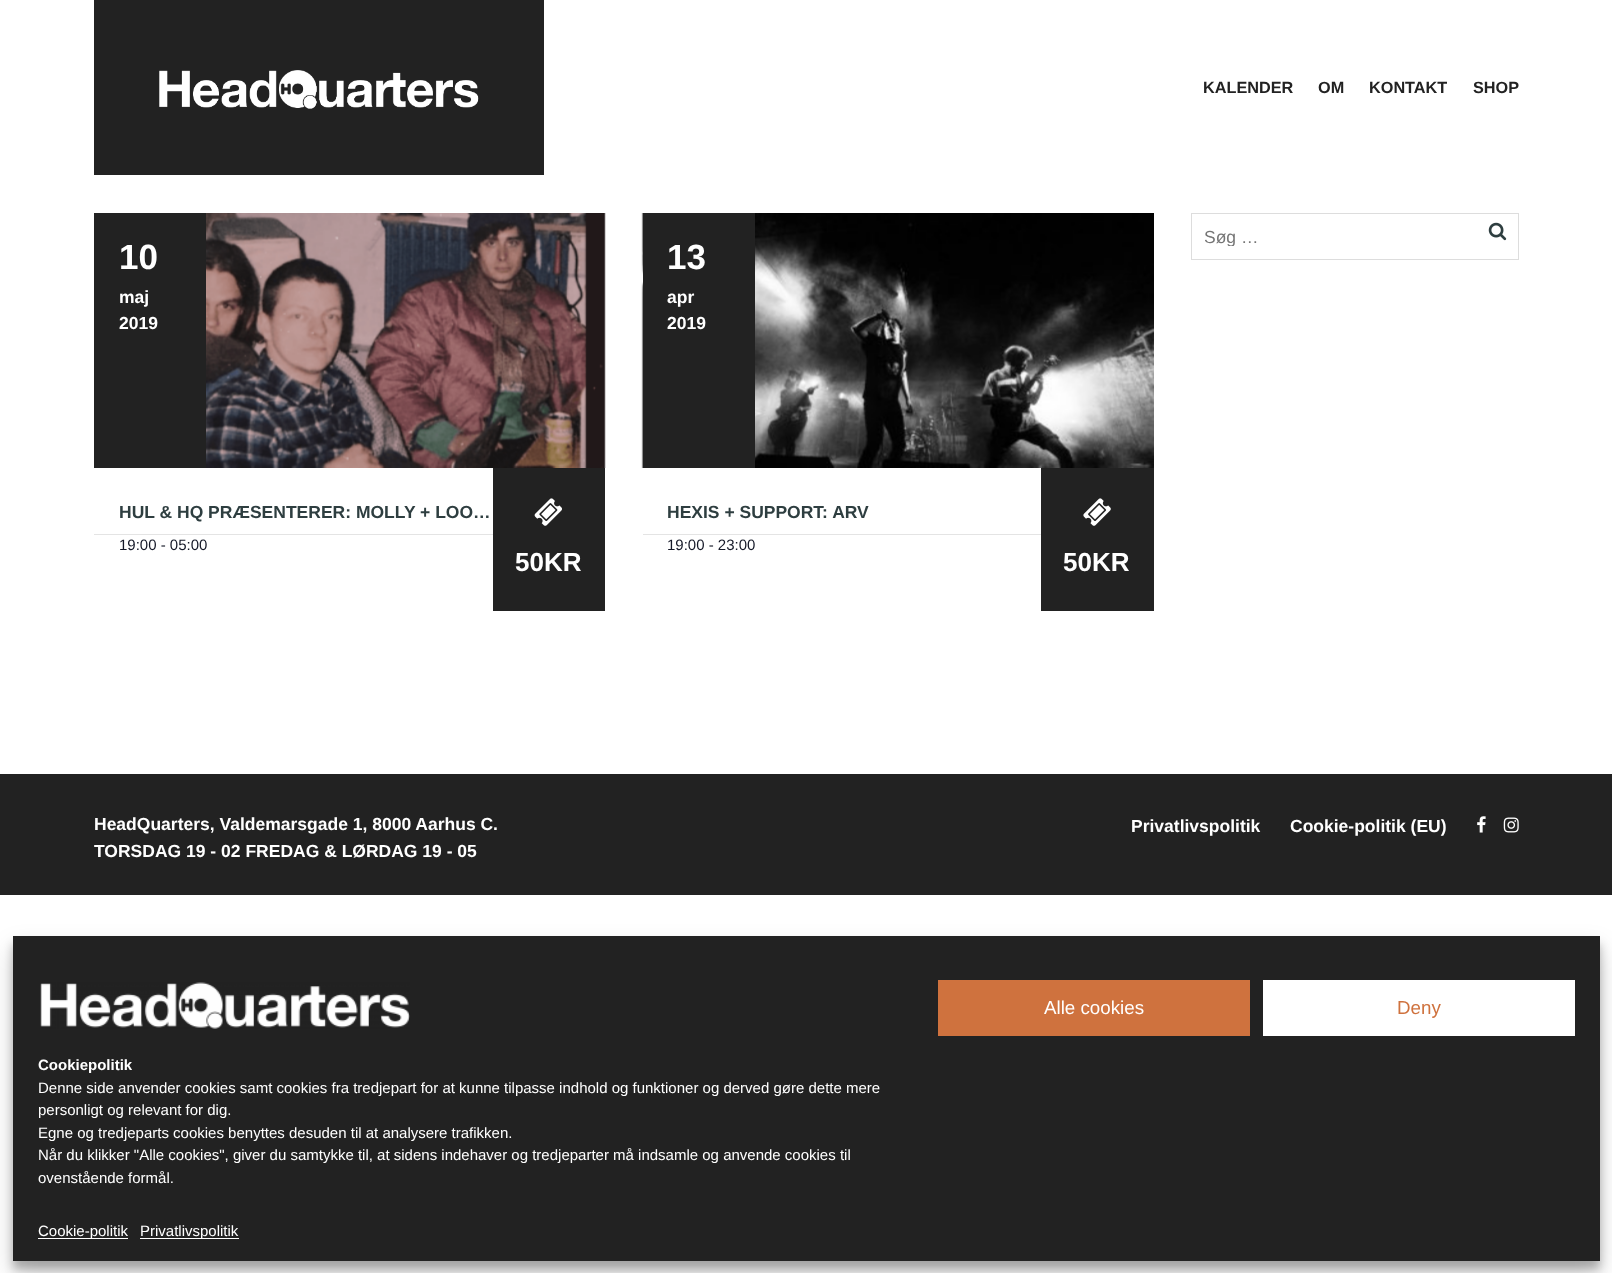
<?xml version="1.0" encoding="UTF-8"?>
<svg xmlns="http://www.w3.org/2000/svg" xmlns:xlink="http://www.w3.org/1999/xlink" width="1612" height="1273">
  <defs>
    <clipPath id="clip1"><rect x="1205" y="226" width="208" height="20" /></clipPath>
  </defs>
  <rect width="100%" height="100%" fill="#ffffff" />
  <rect x="94" width="450" height="175" fill="#222222" />
  <image x="159" y="70" width="320" height="39" xlink:href="image1.png" />
  <rect x="1191.5" y="213.5" width="327" height="46" fill="none" stroke="#dddddd" />
  <image x="1488" y="222" width="19" height="19" xlink:href="image2.png" />
  <rect x="94" y="213" width="112" height="255" fill="#222222" />
  <image x="206" y="213" width="400" height="255" xlink:href="image3.png" />
  <rect x="94" y="534" width="399" height="1" fill="#e4e4e4" />
  <rect x="493" y="468" width="112" height="143" fill="#222222" />
  <image x="534" y="498" width="28" height="28" xlink:href="image4.png" />
  <image x="641" y="213" width="513" height="255" xlink:href="image5.png" />
  <rect x="643" y="213" width="112" height="255" fill="#222222" />
  <rect x="643" y="534" width="398" height="1" fill="#e4e4e4" />
  <rect x="1041" y="468" width="113" height="143" fill="#222222" />
  <image x="1083" y="498" width="28" height="28" xlink:href="image6.png" />
  <rect y="774" width="1612" height="121" fill="#222222" />
  <image x="1477" y="816" width="9" height="17" xlink:href="image7.png" />
  <image x="1503" y="817" width="16" height="16" xlink:href="image8.png" />
  <rect x="13" y="944" width="1587" height="325" fill="#000000" fill-opacity="0.23" filter="blur(4px)" />
  <rect x="13" y="949" width="1587" height="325" fill="#000000" fill-opacity="0.19" filter="blur(12.5px)" />
  <rect x="13" y="936" width="1587" height="325" fill="#222222" />
  <rect x="938" y="980" width="312" height="56" fill="#cf723e" />
  <rect x="1263" y="980" width="312" height="56" fill="#ffffff" />
  <image x="40" y="982" width="370" height="47" xlink:href="image9.png" />
  <rect x="38" y="1238" width="90" height="1" fill="#ffffff" />
  <rect x="140" y="1238" width="99" height="1" fill="#ffffff" />
  <text x="1203" y="93" style="font-family: Liberation Sans; font-size: 16.25px; font-weight: bold; fill: #222222">KALENDER</text>
  <text x="1318" y="93" style="font-family: Liberation Sans; font-size: 16.25px; font-weight: bold; fill: #222222">OM</text>
  <text x="1369" y="93" style="font-family: Liberation Sans; font-size: 16.25px; font-weight: bold; fill: #222222">KONTAKT</text>
  <text x="1473" y="93" style="font-family: Liberation Sans; font-size: 16.25px; font-weight: bold; fill: #222222">SHOP</text>
  <g clip-path="url(#clip1)">
    <text x="1204" y="243" style="font-family: Liberation Sans; font-size: 17.5px; fill: #757575">Søg …</text>
  </g>
  <text x="119" y="269" style="font-family: Liberation Sans; font-size: 35px; font-weight: bold; fill: #ffffff">10</text>
  <text x="119" y="303" style="font-family: Liberation Sans; font-size: 17.5px; font-weight: bold; fill: #ffffff">maj</text>
  <text x="119" y="329" style="font-family: Liberation Sans; font-size: 17.5px; font-weight: bold; fill: #ffffff">2019</text>
  <text x="119" y="518" style="font-family: Liberation Sans; font-size: 17.5px; font-weight: bold; fill: #2e3e40">HUL &amp; HQ PRÆSENTERER: MOLLY + LOO…</text>
  <text x="119" y="550" style="font-family: Liberation Sans; font-size: 15px; fill: #141827">19:00 - 05:00</text>
  <text x="515" y="571" style="font-family: Liberation Sans; font-size: 26px; font-weight: bold; fill: #ffffff">50KR</text>
  <text x="667" y="269" style="font-family: Liberation Sans; font-size: 35px; font-weight: bold; fill: #ffffff">13</text>
  <text x="667" y="303" style="font-family: Liberation Sans; font-size: 17.5px; font-weight: bold; fill: #ffffff">apr</text>
  <text x="667" y="329" style="font-family: Liberation Sans; font-size: 17.5px; font-weight: bold; fill: #ffffff">2019</text>
  <text x="667" y="518" style="font-family: Liberation Sans; font-size: 17.5px; font-weight: bold; fill: #2e3e40">HEXIS + SUPPORT: ARV</text>
  <text x="667" y="550" style="font-family: Liberation Sans; font-size: 15px; fill: #141827">19:00 - 23:00</text>
  <text x="1063" y="571" style="font-family: Liberation Sans; font-size: 26px; font-weight: bold; fill: #ffffff">50KR</text>
  <text x="94" y="830" style="font-family: Liberation Sans; font-size: 17.5px; font-weight: bold; fill: #ffffff">HeadQuarters, Valdemarsgade 1, 8000 Aarhus C.</text>
  <text x="94" y="857" style="font-family: Liberation Sans; font-size: 17.5px; font-weight: bold; fill: #ffffff">TORSDAG 19 - 02 FREDAG &amp; LØRDAG 19 - 05</text>
  <text x="1131" y="832" style="font-family: Liberation Sans; font-size: 17.5px; font-weight: bold; fill: #ffffff">Privatlivspolitik</text>
  <text x="1290" y="832" style="font-family: Liberation Sans; font-size: 17.5px; font-weight: bold; fill: #ffffff">Cookie-politik (EU)</text>
  <text x="1044" y="1014" style="font-family: Liberation Sans; font-size: 18.75px; fill: #ffffff">Alle cookies</text>
  <text x="1397" y="1014" style="font-family: Liberation Sans; font-size: 18.75px; fill: #cf723e">Deny</text>
  <text x="38" y="1070" style="font-family: Liberation Sans; font-size: 15px; font-weight: bold; fill: #ffffff">Cookiepolitik</text>
  <text x="38" y="1093" style="font-family: Liberation Sans; font-size: 15px; fill: #ffffff">Denne side anvender cookies samt cookies fra tredjepart for at kunne tilpasse indhold og funktioner og derved gøre dette mere</text>
  <text x="38" y="1115" style="font-family: Liberation Sans; font-size: 15px; fill: #ffffff">personligt og relevant for dig.</text>
  <text x="38" y="1138" style="font-family: Liberation Sans; font-size: 15px; fill: #ffffff">Egne og tredjeparts cookies benyttes desuden til at analysere trafikken.</text>
  <text x="38" y="1160" style="font-family: Liberation Sans; font-size: 15px; fill: #ffffff">Når du klikker "Alle cookies", giver du samtykke til, at sidens indehaver og tredjeparter må indsamle og anvende cookies til</text>
  <text x="38" y="1183" style="font-family: Liberation Sans; font-size: 15px; fill: #ffffff">ovenstående formål.</text>
  <text x="38" y="1236" style="font-family: Liberation Sans; font-size: 15px; fill: #ffffff">Cookie-politik</text>
  <text x="140" y="1236" style="font-family: Liberation Sans; font-size: 15px; fill: #ffffff">Privatlivspolitik</text>
</svg>
